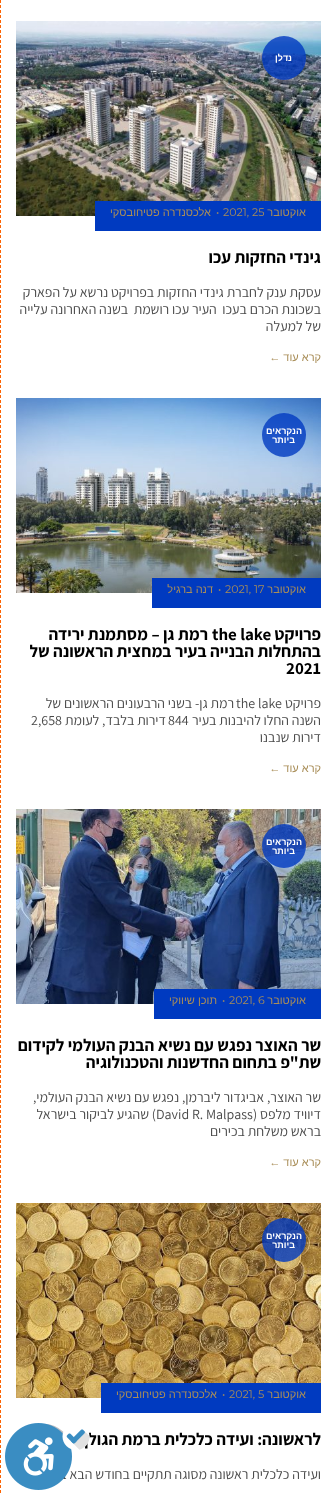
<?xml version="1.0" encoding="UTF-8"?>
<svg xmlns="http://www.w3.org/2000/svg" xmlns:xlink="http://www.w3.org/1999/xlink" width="336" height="1494">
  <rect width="100%" height="100%" fill="#ffffff" />
  <path d="M 0.5 -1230 v 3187" fill="none" stroke="#fd6301" stroke-dasharray="3 2" />
  <image x="16" y="21" width="305" height="195" xlink:href="image1.png" />
  <circle cx="284" cy="58" r="22" fill="#003ac0" fill-opacity="0.8" />
  <rect x="95" y="201" width="226" height="30" fill="#003ac0" />
  <image x="16" y="398" width="305" height="195" xlink:href="image2.png" />
  <circle cx="284" cy="435" r="22" fill="#003ac0" fill-opacity="0.8" />
  <rect x="152" y="578" width="169" height="30" fill="#003ac0" />
  <image x="16" y="809" width="305" height="195" xlink:href="image3.png" />
  <circle cx="284" cy="846" r="22" fill="#003ac0" fill-opacity="0.8" />
  <rect x="154" y="989" width="167" height="30" fill="#003ac0" />
  <image x="16" y="1203" width="305" height="195" xlink:href="image4.png" />
  <circle cx="284" cy="1240" r="22" fill="#003ac0" fill-opacity="0.8" />
  <rect x="101" y="1383" width="220" height="30" fill="#003ac0" />
  <text x="292" y="61" style="font-family: Liberation Sans; font-size: 9px; font-weight: bold; direction: rtl; fill: #ffffff">נדלן</text>
  <text x="306" y="216" style="font-family: Liberation Sans; font-size: 11px; direction: rtl; fill: #a98e58">אוקטובר</text>
  <text x="223" y="216" style="font-family: Montserrat; font-size: 11px; fill: #a98e58">2021, 25</text>
  <text x="216" y="216" style="font-family: Montserrat; font-size: 11px; fill: #a98e58">•</text>
  <text x="211" y="216" style="font-family: Liberation Sans; font-size: 11px; direction: rtl; fill: #a98e58">אלכסנדרה פטיחובסקי</text>
  <text x="321" y="263" style="font-family: Assistant; font-size: 17px; font-weight: bold; direction: rtl; fill: #000000">גינדי החזקות עכו</text>
  <text x="321" y="297" style="font-family: Assistant; font-size: 14px; direction: rtl; fill: #494949">עסקת ענק לחברת גינדי החזקות בפרויקט נרשא על הפארק</text>
  <text x="321" y="314" style="font-family: Assistant; font-size: 14px; direction: rtl; fill: #494949" xml:space="preserve">בשכונת הכרם בעכו  העיר עכו רושמת  בשנה האחרונה עלייה</text>
  <text x="321" y="331" style="font-family: Assistant; font-size: 14px; direction: rtl; fill: #494949">של למעלה</text>
  <text x="321" y="361" style="font-family: Liberation Sans; font-size: 11px; direction: rtl; fill: #a98e58">קרא עוד ←</text>
  <text x="302" y="434" style="font-family: Liberation Sans; font-size: 9px; font-weight: bold; direction: rtl; fill: #ffffff">הנקראים</text>
  <text x="295" y="443" style="font-family: Liberation Sans; font-size: 9px; font-weight: bold; direction: rtl; fill: #ffffff">ביותר</text>
  <text x="306" y="593" style="font-family: Liberation Sans; font-size: 11px; direction: rtl; fill: #a98e58">אוקטובר</text>
  <text x="225" y="593" style="font-family: Montserrat; font-size: 11px; fill: #a98e58">2021, 17</text>
  <text x="218" y="593" style="font-family: Montserrat; font-size: 11px; fill: #a98e58">•</text>
  <text x="213" y="593" style="font-family: Liberation Sans; font-size: 11px; direction: rtl; fill: #a98e58">דנה ברגיל</text>
  <text x="321" y="640" style="font-family: Assistant; font-size: 17px; font-weight: bold; direction: rtl; fill: #000000">פרויקט</text>
  <text x="212" y="640" style="font-family: Assistant; font-size: 17px; font-weight: bold; fill: #000000">the lake</text>
  <text x="208" y="640" style="font-family: Assistant; font-size: 17px; font-weight: bold; direction: rtl; fill: #000000">רמת גן – מסתמנת ירידה</text>
  <text x="321" y="657" style="font-family: Assistant; font-size: 17px; font-weight: bold; direction: rtl; fill: #000000">בהתחלות הבנייה בעיר במחצית הראשונה של</text>
  <text x="286" y="674" style="font-family: Assistant; font-size: 17px; font-weight: bold; fill: #000000">2021</text>
  <text x="321" y="708" style="font-family: Assistant; font-size: 14px; direction: rtl; fill: #494949">פרויקט</text>
  <text x="236" y="708" style="font-family: Assistant; font-size: 14px; fill: #494949">the lake</text>
  <text x="234" y="708" style="font-family: Assistant; font-size: 14px; direction: rtl; fill: #494949">רמת גן- בשני הרבעונים הראשונים של</text>
  <text x="321" y="725" style="font-family: Assistant; font-size: 14px; direction: rtl; fill: #494949">השנה החלו להיבנות בעיר</text>
  <text x="168" y="725" style="font-family: Assistant; font-size: 14px; fill: #494949">844</text>
  <text x="166" y="725" style="font-family: Assistant; font-size: 14px; direction: rtl; fill: #494949">דירות בלבד, לעומת</text>
  <text x="31" y="725" style="font-family: Assistant; font-size: 14px; fill: #494949">2,658</text>
  <text x="321" y="742" style="font-family: Assistant; font-size: 14px; direction: rtl; fill: #494949">דירות שנבנו</text>
  <text x="321" y="772" style="font-family: Liberation Sans; font-size: 11px; direction: rtl; fill: #a98e58">קרא עוד ←</text>
  <text x="302" y="845" style="font-family: Liberation Sans; font-size: 9px; font-weight: bold; direction: rtl; fill: #ffffff">הנקראים</text>
  <text x="295" y="854" style="font-family: Liberation Sans; font-size: 9px; font-weight: bold; direction: rtl; fill: #ffffff">ביותר</text>
  <text x="306" y="1004" style="font-family: Liberation Sans; font-size: 11px; direction: rtl; fill: #a98e58">אוקטובר</text>
  <text x="229" y="1004" style="font-family: Montserrat; font-size: 11px; fill: #a98e58">2021, 6</text>
  <text x="222" y="1004" style="font-family: Montserrat; font-size: 11px; fill: #a98e58">•</text>
  <text x="217" y="1004" style="font-family: Liberation Sans; font-size: 11px; direction: rtl; fill: #a98e58">תוכן שיווקי</text>
  <text x="321" y="1051" style="font-family: Assistant; font-size: 17px; font-weight: bold; direction: rtl; fill: #000000">שר האוצר נפגש עם נשיא הבנק העולמי לקידום</text>
  <text x="321" y="1068" style="font-family: Assistant; font-size: 17px; font-weight: bold; direction: rtl; fill: #000000">שת"פ בתחום החדשנות והטכנולוגיה</text>
  <text x="321" y="1102" style="font-family: Assistant; font-size: 14px; direction: rtl; fill: #494949">שר האוצר, אביגדור ליברמן, נפגש עם נשיא הבנק העולמי,</text>
  <text x="321" y="1119" style="font-family: Assistant; font-size: 14px; direction: rtl; fill: #494949">דיוויד מלפס (</text>
  <text x="156" y="1119" style="font-family: Assistant; font-size: 14px; fill: #494949">David R. Malpass</text>
  <text x="156" y="1119" style="font-family: Assistant; font-size: 14px; direction: rtl; fill: #494949">) שהגיע לביקור בישראל</text>
  <text x="321" y="1136" style="font-family: Assistant; font-size: 14px; direction: rtl; fill: #494949">בראש משלחת בכירים</text>
  <text x="321" y="1166" style="font-family: Liberation Sans; font-size: 11px; direction: rtl; fill: #a98e58">קרא עוד ←</text>
  <text x="302" y="1239" style="font-family: Liberation Sans; font-size: 9px; font-weight: bold; direction: rtl; fill: #ffffff">הנקראים</text>
  <text x="295" y="1248" style="font-family: Liberation Sans; font-size: 9px; font-weight: bold; direction: rtl; fill: #ffffff">ביותר</text>
  <text x="306" y="1398" style="font-family: Liberation Sans; font-size: 11px; direction: rtl; fill: #a98e58">אוקטובר</text>
  <text x="229" y="1398" style="font-family: Montserrat; font-size: 11px; fill: #a98e58">2021, 5</text>
  <text x="222" y="1398" style="font-family: Montserrat; font-size: 11px; fill: #a98e58">•</text>
  <text x="217" y="1398" style="font-family: Liberation Sans; font-size: 11px; direction: rtl; fill: #a98e58">אלכסנדרה פטיחובסקי</text>
  <text x="321" y="1445" style="font-family: Assistant; font-size: 17px; font-weight: bold; direction: rtl; fill: #000000">לראשונה: ועידה כלכלית ברמת הגולן</text>
  <text x="321" y="1479" style="font-family: Assistant; font-size: 14px; direction: rtl; fill: #494949">ועידה כלכלית ראשונה מסוגה תתקיים בחודש הבא ברמת</text>
  <circle cx="45" cy="1449" r="25" fill="#252531" fill-opacity="0.3" />
  <image x="5" y="1423" width="85" height="67" xlink:href="image5.png" />
</svg>
